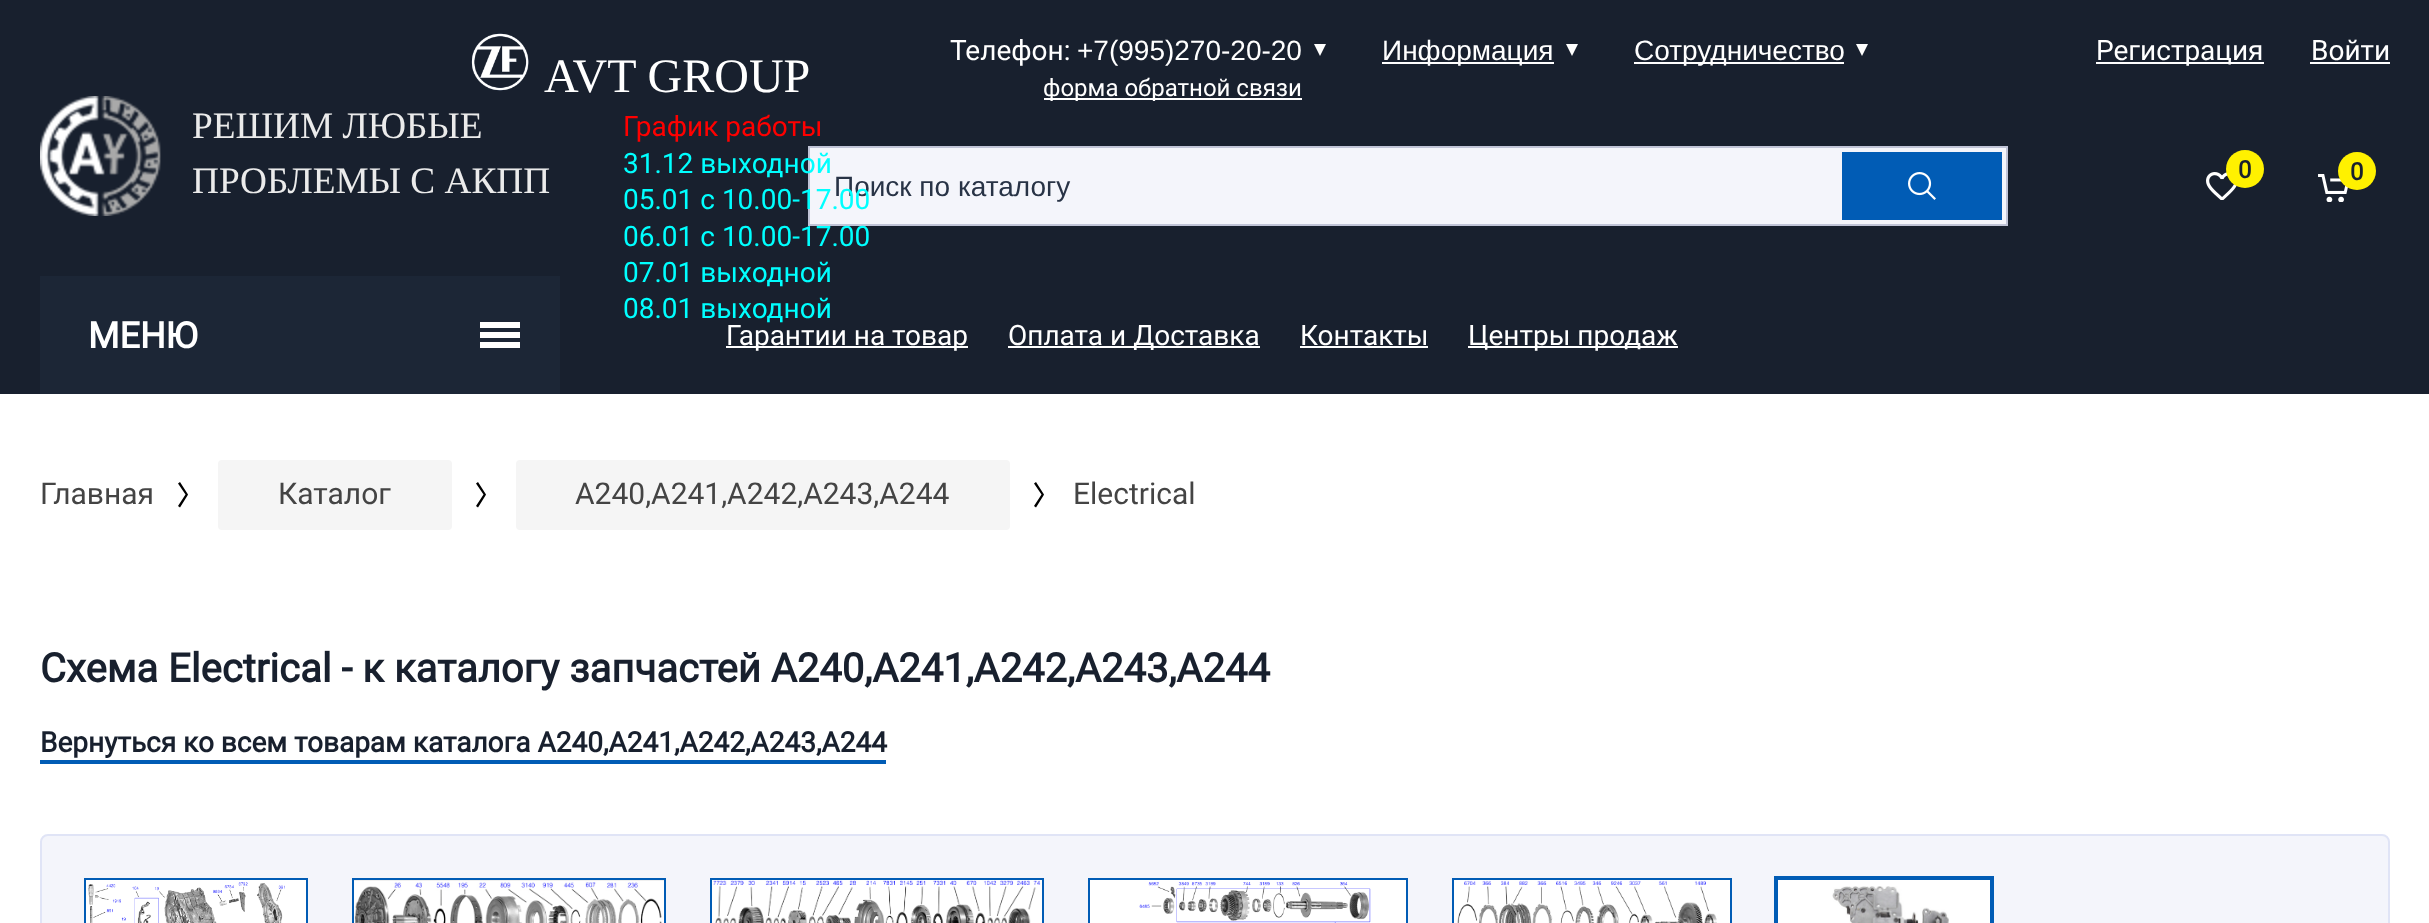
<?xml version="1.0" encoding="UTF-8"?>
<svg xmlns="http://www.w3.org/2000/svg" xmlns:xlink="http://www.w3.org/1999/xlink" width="2429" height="923">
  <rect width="100%" height="100%" fill="#ffffff" />
  <rect width="2429" height="394" fill="#18202e" />
  <path d="M 1314 44 h 12 l -6 12 z" fill="#ffffff" />
  <rect x="1044" y="98" width="258" height="2" fill="#ffffff" />
  <rect x="1382" y="62" width="172" height="2" fill="#ffffff" />
  <path d="M 1566 44 h 12 l -6 12 z" fill="#ffffff" />
  <rect x="1634" y="62" width="210" height="2" fill="#ffffff" />
  <path d="M 1856 44 h 12 l -6 12 z" fill="#ffffff" />
  <rect x="2096" y="62" width="168" height="2" fill="#ffffff" />
  <rect x="2310" y="62" width="80" height="2" fill="#ffffff" />
  <image x="471" y="33" width="58" height="58" xlink:href="image1.png" />
  <image x="40" y="96" width="121" height="120" xlink:href="image2.png" />
  <image x="2206" y="172" width="31" height="28" xlink:href="image3.png" />
  <circle cx="2245" cy="169" r="19" fill="#fff100" />
  <image x="2318" y="174" width="30" height="28" xlink:href="image4.png" />
  <circle cx="2357" cy="171" r="19" fill="#fff100" />
  <rect x="809" y="147" width="1198" height="78" fill="#f4f5fb" stroke="#c0c4d7" stroke-width="2" />
  <rect x="1842" y="152" width="160" height="68" fill="#015cb5" />
  <image x="1908" y="172" width="28" height="28" xlink:href="image5.png" />
  <rect x="40" y="276" width="520" height="118" fill="#1c2636" />
  <rect x="480" y="332" width="40" height="6" fill="#ffffff" />
  <rect x="480" y="322" width="40" height="6" fill="#ffffff" />
  <rect x="480" y="342" width="40" height="6" fill="#ffffff" />
  <rect x="726" y="346" width="242" height="2" fill="#ffffff" />
  <rect x="1008" y="346" width="252" height="2" fill="#ffffff" />
  <rect x="1300" y="346" width="128" height="2" fill="#ffffff" />
  <rect x="1468" y="346" width="210" height="2" fill="#ffffff" />
  <path d="M 180 507.5 l -2 -1.5 l 7.5 -11.5 l -7.5 -11 l 2 -1.5 l 8 12.5 l -0.5 1 z" fill="#000000" />
  <path d="M 478 507.5 l -2 -1.5 l 7.5 -11.5 l -7.5 -11 l 2 -1.5 l 8 12.5 l -0.5 1 z" fill="#000000" />
  <rect x="218" y="460" width="234" height="70" rx="4" fill="#f5f5f5" />
  <path d="M 1036 507.5 l -2 -1.5 l 7.5 -11.5 l -7.5 -11 l 2 -1.5 l 8 12.5 l -0.5 1 z" fill="#000000" />
  <rect x="516" y="460" width="494" height="70" rx="4" fill="#f5f5f5" />
  <rect x="40" y="760" width="846" height="4" fill="#015cb5" />
  <rect x="41" y="835" width="2348" height="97" rx="7" fill="#f4f5fb" stroke="#e0e4f6" stroke-width="2" />
  <rect x="85" y="879" width="222" height="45" fill="none" stroke="#015cb5" stroke-width="2" />
  <rect x="86" y="880" width="220" height="43" fill="#ffffff" />
  <image x="88" y="882" width="197" height="41" xlink:href="image6.png" />
  <rect x="353" y="879" width="312" height="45" fill="none" stroke="#015cb5" stroke-width="2" />
  <image x="354" y="880" width="310" height="43" xlink:href="image7.png" />
  <rect x="711" y="879" width="332" height="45" fill="none" stroke="#015cb5" stroke-width="2" />
  <rect x="712" y="880" width="330" height="43" fill="#ffffff" />
  <image x="713" y="880" width="328" height="43" xlink:href="image8.png" />
  <rect x="1089" y="879" width="318" height="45" fill="none" stroke="#015cb5" stroke-width="2" />
  <rect x="1090" y="880" width="316" height="43" fill="#ffffff" />
  <image x="1139" y="882" width="232" height="41" xlink:href="image9.png" />
  <rect x="1453" y="879" width="278" height="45" fill="none" stroke="#015cb5" stroke-width="2" />
  <rect x="1454" y="880" width="276" height="43" fill="#ffffff" />
  <image x="1457" y="880" width="260" height="43" xlink:href="image10.png" />
  <rect x="1776" y="878" width="216" height="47" fill="none" stroke="#015cb5" stroke-width="4" />
  <rect x="1778" y="880" width="212" height="43" fill="#ffffff" />
  <image x="1832" y="886" width="117" height="37" xlink:href="image11.png" />
  <text x="950" y="60" style="font-family: Roboto; font-size: 28px; fill: #ffffff">Телефон:</text>
  <text x="1077" y="60" style="font-family: Liberation Sans; font-size: 28px; fill: #ffffff">+7(995)270-20-20</text>
  <text x="1043" y="96" style="font-family: Roboto; font-size: 24px; fill: #ffffff">форма обратной связи</text>
  <text x="1382" y="60" style="font-family: Liberation Sans; font-size: 28px; fill: #ffffff">Информация</text>
  <text x="1634" y="60" style="font-family: Liberation Sans; font-size: 28px; fill: #ffffff">Сотрудничество</text>
  <text x="2096" y="60" style="font-family: Roboto; font-size: 28px; fill: #ffffff">Регистрация</text>
  <text x="2311" y="60" style="font-family: Roboto; font-size: 28px; fill: #ffffff">Войти</text>
  <text x="544" y="92" style="font-family: Liberation Serif; font-size: 48px; fill: #ffffff">AVT GROUP</text>
  <text x="623" y="136" style="font-family: Roboto; font-size: 28px; fill: #ff0000">График работы</text>
  <text x="623" y="173" style="font-family: Roboto; font-size: 28px; fill: #00ffff">31.12 выходной</text>
  <text x="623" y="246" style="font-family: Roboto; font-size: 28px; fill: #00ffff">06.01 с 10.00-17.00</text>
  <text x="623" y="282" style="font-family: Roboto; font-size: 28px; fill: #00ffff">07.01 выходной</text>
  <text x="623" y="318" style="font-family: Roboto; font-size: 28px; fill: #00ffff">08.01 выходной</text>
  <text x="192" y="138" style="font-family: Liberation Serif; font-size: 37.25px; fill: #ebebeb">РЕШИМ ЛЮБЫЕ</text>
  <text x="192" y="193" style="font-family: Liberation Serif; font-size: 37.25px; fill: #ebebeb">ПРОБЛЕМЫ С АКПП</text>
  <text x="2238" y="178" style="font-family: Roboto; font-size: 24px; font-weight: bold; fill: #18202e">0</text>
  <text x="2350" y="180" style="font-family: Roboto; font-size: 24px; font-weight: bold; fill: #18202e">0</text>
  <text x="834" y="196" style="font-family: Liberation Sans; font-size: 28px; fill: #283346">Поиск по каталогу</text>
  <text x="623" y="209" style="font-family: Roboto; font-size: 28px; fill: #00ffff">05.01 с 10.00-17.00</text>
  <text x="88" y="348" style="font-family: Roboto; font-size: 36px; font-weight: bold; fill: #ffffff">МЕНЮ</text>
  <text x="726" y="345" style="font-family: Roboto; font-size: 28px; fill: #ffffff">Гарантии на товар</text>
  <text x="1008" y="345" style="font-family: Roboto; font-size: 28px; fill: #ffffff">Оплата и Доставка</text>
  <text x="1300" y="345" style="font-family: Roboto; font-size: 28px; fill: #ffffff">Контакты</text>
  <text x="1468" y="345" style="font-family: Roboto; font-size: 28px; fill: #ffffff">Центры продаж</text>
  <text x="40" y="504" style="font-family: Roboto; font-size: 30px; fill: #444444">Главная</text>
  <text x="278" y="504" style="font-family: Roboto; font-size: 30px; fill: #444444">Каталог</text>
  <text x="575" y="504" style="font-family: Roboto; font-size: 30px; fill: #444444">A240,A241,A242,A243,A244</text>
  <text x="1073" y="504" style="font-family: Roboto; font-size: 30px; fill: #444444">Electrical</text>
  <text x="40" y="682" style="font-family: Roboto; font-size: 40px; font-weight: bold; fill: #18202e">Схема Electrical - к каталогу запчастей A240,A241,A242,A243,A244</text>
  <text x="40" y="752" style="font-family: Roboto; font-size: 28px; font-weight: bold; fill: #18202e">Вернуться ко всем товарам каталога A240,A241,A242,A243,A244</text>
</svg>
